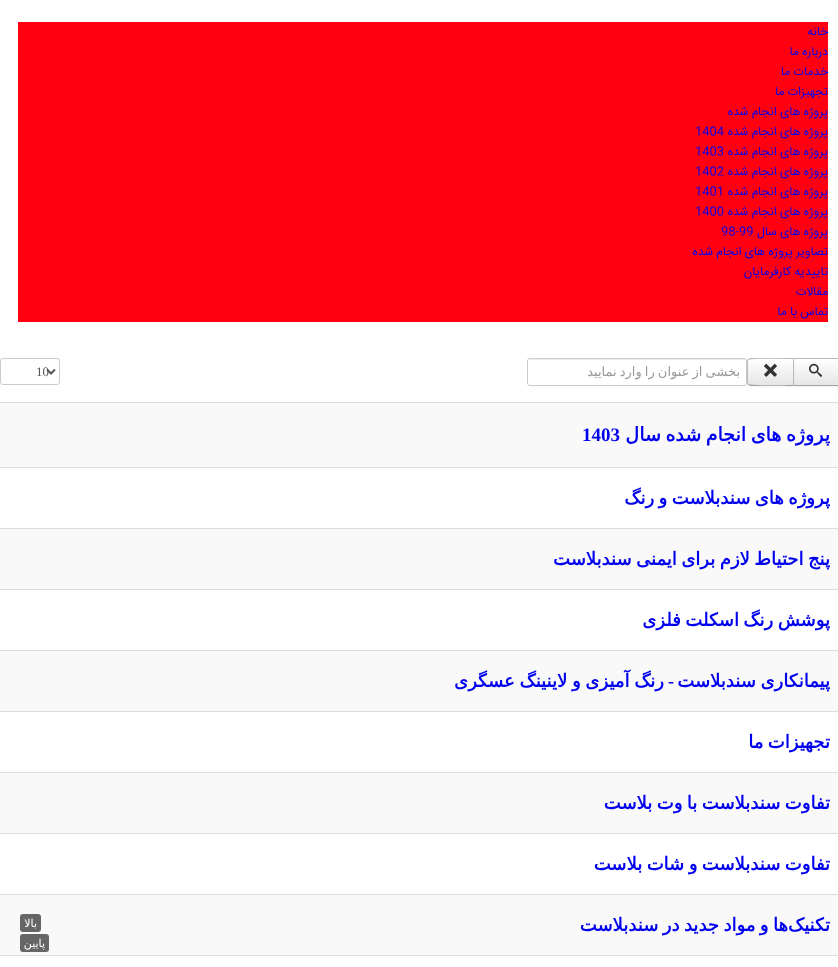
<?xml version="1.0" encoding="UTF-8"?>
<svg xmlns="http://www.w3.org/2000/svg" xmlns:xlink="http://www.w3.org/1999/xlink" width="838" height="967">
  <defs>
    <linearGradient id="g1" gradientUnits="userSpaceOnUse" x1="816" y1="359" x2="816" y2="385"><stop offset="0" stop-color="#ffffff" /><stop offset="1" stop-color="#e6e6e6" /></linearGradient>
    <clipPath id="clip1"><path d="M 751 358 h 43 v 28 h -43 c -2 0 -4 -2 -4 -4 v -20 c 0 -2 2 -4 4 -4 z" /></clipPath>
    <linearGradient id="g2" gradientUnits="userSpaceOnUse" x1="771" y1="359" x2="771" y2="385"><stop offset="0" stop-color="#ffffff" /><stop offset="1" stop-color="#e6e6e6" /></linearGradient>
    <clipPath id="clip2"><rect x="534" y="364" width="206" height="16" /></clipPath>
  </defs>
  <rect width="100%" height="100%" fill="#ffffff" />
  <rect x="18" y="22" width="810" height="300" fill="#ff0011" />
  <rect x="793" y="359" width="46" height="28" fill="#000000" fill-opacity="0.05" filter="blur(1px)" />
  <rect x="794" y="359" width="44" height="26" fill="url(#g1)" />
  <rect x="793" y="358" width="45" height="1" fill="#bbbbbb" />
  <rect x="793" y="385" width="45" height="1" fill="#a2a2a2" />
  <image x="809" y="363" width="13" height="14" xlink:href="image1.png" />
  <path d="M 530 360 h 214 c 1 0 2 1 2 2 c 0 -1 0 -3 -2 -3 h -214 l -1 1 l -1 2 c 0 -1 1 -2 2 -2 z" fill="#ececec" />
  <rect x="527.5" y="358.5" width="219" height="27" rx="2.5" fill="none" stroke="#cccccc" />
  <rect x="747" y="359" width="47" height="28" rx="4" fill="#000000" fill-opacity="0.05" filter="blur(1px)" />
  <path d="M 751 358 h 43 v 28 h -43 c -2 0 -4 -2 -4 -4 v -20 c 0 -2 2 -4 4 -4 z" fill="#f5f5f5" />
  <g clip-path="url(#clip1)">
    <rect x="747" y="359" width="46" height="26" fill="url(#g2)" />
  </g>
  <path d="M 751 358 l -3 1 l 1 1 c 2 -2 39 -1 44 -1 l 1 -1 z" fill="#bbbbbb" />
  <path d="M 794 358 l -1 1 v 26 l 1 1 z" fill="#bbbbbb" />
  <path d="M 794 386 l -1 -1 c -5 0 -42 1 -44 -1 l -1 1 l 3 1 z" fill="#a2a2a2" />
  <path d="M 747 362 v 20 c 0 1 0.5 2 1 3 l 1 -1 c -1 0 -1 -1 -1 -2 v -20 c 0 -1 0 -2 1 -2 l -1 -1 c -0.5 1 -1 2 -1 3 z" fill="#bbbbbb" />
  <image x="764" y="363" width="13" height="14" xlink:href="image2.png" />
  <rect x="0.5" y="358.5" width="59" height="26" rx="2.5" fill="none" stroke="#cccccc" />
  <path d="M 47 369.5 l 4 4 l 4 -4" fill="none" stroke="#555555" stroke-width="2" />
  <rect y="402" width="838" height="1" fill="#dddddd" />
  <rect y="403" width="838" height="64" fill="#f9f9f9" />
  <rect y="467" width="838" height="1" fill="#dddddd" />
  <rect y="528" width="838" height="1" fill="#dddddd" />
  <rect y="529" width="838" height="60" fill="#f9f9f9" />
  <rect y="589" width="838" height="1" fill="#dddddd" />
  <rect y="650" width="838" height="1" fill="#dddddd" />
  <rect y="651" width="838" height="60" fill="#f9f9f9" />
  <rect y="711" width="838" height="1" fill="#dddddd" />
  <rect y="772" width="838" height="1" fill="#dddddd" />
  <rect y="773" width="838" height="60" fill="#f9f9f9" />
  <rect y="833" width="838" height="1" fill="#dddddd" />
  <rect y="894" width="838" height="1" fill="#dddddd" />
  <rect y="895" width="838" height="60" fill="#f9f9f9" />
  <rect y="955" width="838" height="1" fill="#dddddd" />
  <rect x="20" y="914" width="21" height="18" rx="3" fill="#666666" />
  <rect x="20" y="934" width="29" height="18" rx="3" fill="#666666" />
  <text x="828" y="35" style="font-family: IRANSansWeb; font-size: 12px; direction: rtl; fill: #0000ee">خانه</text>
  <text x="828" y="55" style="font-family: IRANSansWeb; font-size: 12px; direction: rtl; fill: #0000ee">درباره ما</text>
  <text x="828" y="75" style="font-family: IRANSansWeb; font-size: 12px; direction: rtl; fill: #0000ee">خدمات ما</text>
  <text x="828" y="95" style="font-family: IRANSansWeb; font-size: 12px; direction: rtl; fill: #0000ee">تجهیزات ما</text>
  <text x="828" y="115" style="font-family: IRANSansWeb; font-size: 12px; direction: rtl; fill: #0000ee">پروژه های انجام شده</text>
  <text x="828" y="135" style="font-family: IRANSansWeb; font-size: 12px; direction: rtl; fill: #0000ee">پروژه های انجام شده</text>
  <text x="695" y="135" style="font-family: IRANSansWeb; font-size: 12px; fill: #0000ee">1404</text>
  <text x="828" y="155" style="font-family: IRANSansWeb; font-size: 12px; direction: rtl; fill: #0000ee">پروژه های انجام شده</text>
  <text x="695" y="155" style="font-family: IRANSansWeb; font-size: 12px; fill: #0000ee">1403</text>
  <text x="828" y="175" style="font-family: IRANSansWeb; font-size: 12px; direction: rtl; fill: #0000ee">پروژه های انجام شده</text>
  <text x="695" y="175" style="font-family: IRANSansWeb; font-size: 12px; fill: #0000ee">1402</text>
  <text x="828" y="195" style="font-family: IRANSansWeb; font-size: 12px; direction: rtl; fill: #0000ee">پروژه های انجام شده</text>
  <text x="695" y="195" style="font-family: IRANSansWeb; font-size: 12px; fill: #0000ee">1401</text>
  <text x="828" y="215" style="font-family: IRANSansWeb; font-size: 12px; direction: rtl; fill: #0000ee">پروژه های انجام شده</text>
  <text x="695" y="215" style="font-family: IRANSansWeb; font-size: 12px; fill: #0000ee">1400</text>
  <text x="828" y="235" style="font-family: IRANSansWeb; font-size: 12px; direction: rtl; fill: #0000ee">پروژه های سال</text>
  <text x="721" y="235" style="font-family: IRANSansWeb; font-size: 12px; fill: #0000ee">98-99</text>
  <text x="828" y="255" style="font-family: IRANSansWeb; font-size: 12px; direction: rtl; fill: #0000ee">تصاویر پروژه های انجام شده</text>
  <text x="828" y="275" style="font-family: IRANSansWeb; font-size: 12px; direction: rtl; fill: #0000ee">تاییدیه کارفرمایان</text>
  <text x="828" y="295" style="font-family: IRANSansWeb; font-size: 12px; direction: rtl; fill: #0000ee">مقالات</text>
  <text x="828" y="315" style="font-family: IRANSansWeb; font-size: 12px; direction: rtl; fill: #0000ee">تماس با ما</text>
  <g clip-path="url(#clip2)">
    <text x="740" y="376" word-spacing="-1" style="font-family: DejaVu Sans; font-size: 13px; direction: rtl; fill: #999999">بخشی از عنوان را وارد نمایید</text>
  </g>
  <text x="36" y="376" style="font-family: Liberation Serif; font-size: 13px; fill: #555555">10</text>
  <text x="830" y="441" word-spacing="-1.5" style="font-family: DejaVu Sans; font-size: 19px; font-weight: bold; direction: rtl; fill: #0000ee">پروژه های انجام شده سال</text>
  <text x="582" y="441" style="font-family: Liberation Serif; font-size: 19px; font-weight: bold; fill: #0000ee">1403</text>
  <text x="830" y="504" word-spacing="-1.25" style="font-family: DejaVu Sans; font-size: 18px; font-weight: bold; direction: rtl; fill: #0000ee">پروژه های سندبلاست و رنگ</text>
  <text x="830" y="565" word-spacing="-1.25" style="font-family: DejaVu Sans; font-size: 18px; font-weight: bold; direction: rtl; fill: #0000ee">پنج احتیاط لازم برای ایمنی سندبلاست</text>
  <text x="830" y="626" word-spacing="-1.25" style="font-family: DejaVu Sans; font-size: 18px; font-weight: bold; direction: rtl; fill: #0000ee">پوشش رنگ اسکلت فلزی</text>
  <text x="830" y="687" word-spacing="-1" style="font-family: DejaVu Sans; font-size: 18px; font-weight: bold; direction: rtl; fill: #0000ee">پیمانکاری سندبلاست</text>
  <text x="674" y="687" style="font-family: Liberation Serif; font-size: 18px; font-weight: bold; direction: rtl; fill: #0000ee">-</text>
  <text x="664" y="687" word-spacing="-1" style="font-family: DejaVu Sans; font-size: 18px; font-weight: bold; direction: rtl; fill: #0000ee">رنگ آمیزی و لاینینگ عسگری</text>
  <text x="830" y="748" word-spacing="-1.25" style="font-family: DejaVu Sans; font-size: 18px; font-weight: bold; direction: rtl; fill: #0000ee">تجهیزات ما</text>
  <text x="830" y="809" word-spacing="-1.25" style="font-family: DejaVu Sans; font-size: 18px; font-weight: bold; direction: rtl; fill: #0000ee">تفاوت سندبلاست با وت بلاست</text>
  <text x="830" y="870" word-spacing="-1.25" style="font-family: DejaVu Sans; font-size: 18px; font-weight: bold; direction: rtl; fill: #0000ee">تفاوت سندبلاست و شات بلاست</text>
  <text x="788" y="931" word-spacing="-1.25" style="font-family: DejaVu Sans; font-size: 18px; font-weight: bold; direction: rtl; fill: #0000ee">ها و مواد جدید در سندبلاست</text>
  <text x="830" y="931" style="font-family: DejaVu Sans; font-size: 18px; font-weight: bold; direction: rtl; fill: #0000ee">تکنیک</text>
  <text x="37" y="927" style="font-family: DejaVu Sans; font-size: 11px; direction: rtl; fill: #ffffff">بالا</text>
  <text x="45" y="947" style="font-family: DejaVu Sans; font-size: 11px; direction: rtl; fill: #ffffff">پایین</text>
</svg>
